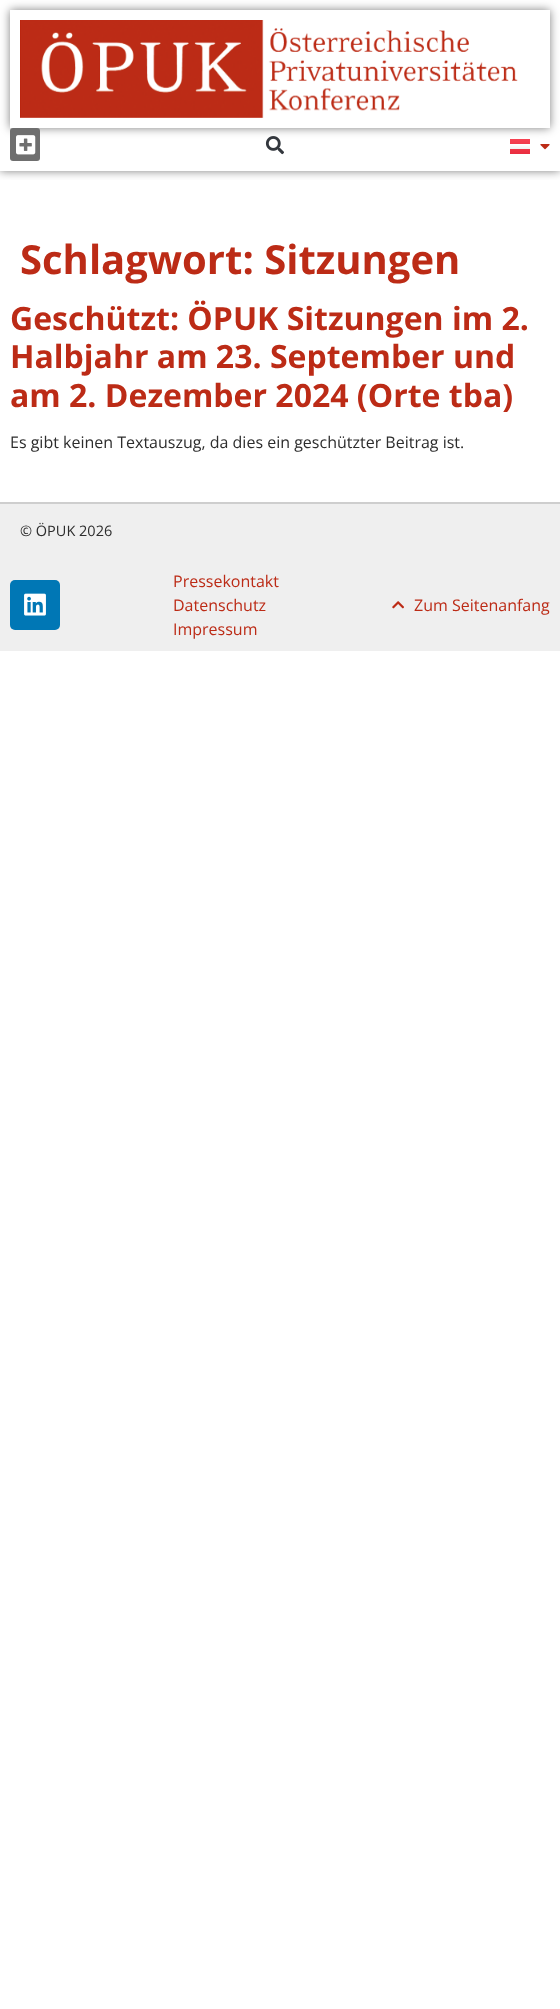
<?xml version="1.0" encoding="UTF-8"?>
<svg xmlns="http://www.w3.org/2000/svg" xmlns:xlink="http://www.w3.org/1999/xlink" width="560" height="2009">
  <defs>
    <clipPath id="clip1"><rect x="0" y="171" width="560" height="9" /></clipPath>
    <clipPath id="clip2"><path d="M 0 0 h 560 v 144 h -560 z m 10 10 h 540 v 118 h -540 z" clip-rule="evenodd" /></clipPath>
  </defs>
  <rect width="100%" height="100%" fill="#ffffff" />
  <g clip-path="url(#clip1)">
    <rect width="560" height="171" fill="#000000" fill-opacity="0.5" filter="blur(5px)" />
  </g>
  <g clip-path="url(#clip2)">
    <rect x="10" y="10" width="540" height="118" fill="#000000" fill-opacity="0.5" filter="blur(5px)" />
  </g>
  <image x="20" y="20" width="498" height="98" xlink:href="image1.png" />
  <rect x="10" y="128" width="30" height="33" rx="3" fill="#6f6f6f" />
  <image x="16" y="135" width="20" height="20" xlink:href="image2.png" />
  <image x="265" y="136" width="19" height="19" xlink:href="image3.png" />
  <image x="510" y="139" width="20" height="15" xlink:href="image4.png" />
  <image x="540" y="144" width="10" height="6" xlink:href="image5.png" />
  <rect y="504" width="560" height="147" fill="#efefef" />
  <rect y="502" width="560" height="2" fill="#cecece" />
  <rect x="10" y="580" width="50" height="50" rx="5" fill="#0077b5" />
  <image x="24" y="593" width="22" height="23" xlink:href="image6.png" />
  <image x="392" y="601" width="12" height="8" xlink:href="image7.png" />
  <text x="20" y="274" style="font-family: Open Sans; font-size: 40px; font-weight: bold; fill: #bc2b16">Schlagwort: Sitzungen</text>
  <text x="10" y="330" style="font-family: Open Sans; font-size: 32px; font-weight: bold; fill: #bc2b16">Geschützt: ÖPUK Sitzungen im 2.</text>
  <text x="10" y="368" style="font-family: Open Sans; font-size: 32px; font-weight: bold; fill: #bc2b16">Halbjahr am 23. September und</text>
  <text x="10" y="407" style="font-family: Open Sans; font-size: 32px; font-weight: bold; fill: #bc2b16">am 2. Dezember 2024 (Orte tba)</text>
  <text x="10" y="448" style="font-family: Open Sans; font-size: 16px; fill: #2d2d2d">Es gibt keinen Textauszug, da dies ein geschützter Beitrag ist.</text>
  <text x="20" y="536" style="font-family: Open Sans; font-size: 14.5px; fill: #2d2d2d">© ÖPUK 2026</text>
  <text x="173" y="587" style="font-family: Open Sans; font-size: 16px; fill: #bc2b16">Pressekontakt</text>
  <text x="173" y="611" style="font-family: Open Sans; font-size: 16px; fill: #bc2b16">Datenschutz</text>
  <text x="173" y="635" style="font-family: Open Sans; font-size: 16px; fill: #bc2b16">Impressum</text>
  <text x="414" y="611" style="font-family: Open Sans; font-size: 16px; fill: #bc2b16">Zum Seitenanfang</text>
</svg>
